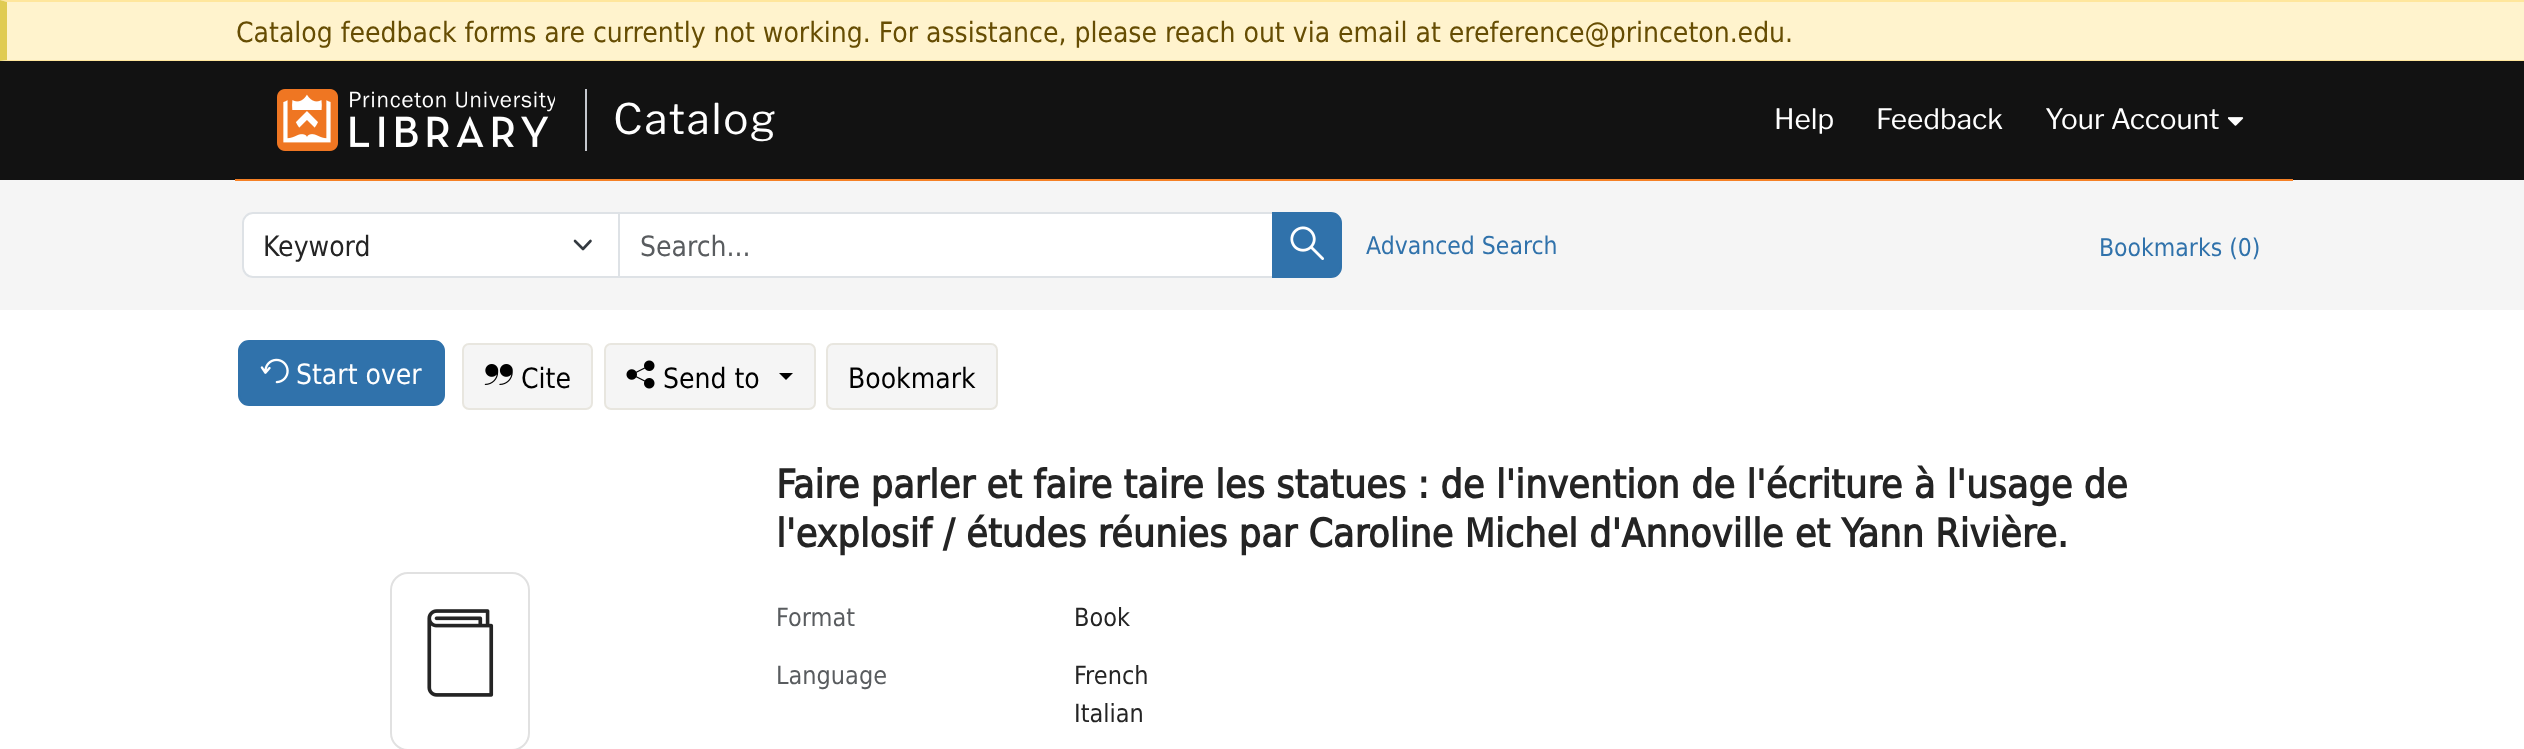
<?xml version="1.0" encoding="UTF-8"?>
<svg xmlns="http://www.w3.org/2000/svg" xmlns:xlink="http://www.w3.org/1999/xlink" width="2524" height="749">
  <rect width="100%" height="100%" fill="#f5f5f5" />
  <rect x="7" y="2" width="2517" height="58" fill="#fff3cd" />
  <path d="M 0 0 h 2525 l -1 2 h -2517 z" fill="#ffe69c" />
  <path d="M 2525 61 h -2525 l 7 -1 h 2517 z" fill="#ffe69c" />
  <path d="M 0 61 v -61 l 7 2 v 58 z" fill="#e0cb52" />
  <rect y="61" width="2524" height="119" fill="#121212" />
  <rect x="235" y="179" width="2058" height="2" fill="#f58025" />
  <image x="277" y="89" width="278" height="62" xlink:href="image1.png" />
  <rect x="585" y="89" width="2" height="62" fill="#c5c8ce" />
  <image x="2228" y="117" width="16" height="9" xlink:href="image2.png" />
  <rect x="619" y="213" width="654" height="64" fill="#ffffff" stroke="#dee2e6" stroke-width="2" />
  <path d="M 253 212 h 367 v 66 h -367 c -6 0 -11 -5 -11 -11 v -44 c 0 -6 5 -11 11 -11 z" fill="#ffffff" />
  <path d="M 575 241 l 8 8 l 7.5 -8" fill="none" stroke="#343a40" stroke-width="2.6" stroke-linecap="round" stroke-linejoin="round" />
  <path d="M 253 213 h 366 v 64 h -366 c -5.5 0 -10 -4.5 -10 -10 v -44 c 0 -5.5 4.5 -10 10 -10 z" fill="none" stroke="#dee2e6" stroke-width="2" />
  <path d="M 1273 213 h 58 c 5.5 0 10 4.5 10 10 v 44 c 0 5.5 -4.5 10 -10 10 h -58 z" fill="#3072ab" stroke="#3072ab" stroke-width="2" />
  <image x="1290" y="226" width="34" height="34" xlink:href="image3.png" />
  <rect y="310" width="2524" height="439" fill="#ffffff" />
  <rect x="239" y="341" width="205" height="64" rx="10" fill="#3072ab" stroke="#3072ab" stroke-width="2" />
  <image x="260" y="358" width="29" height="26" xlink:href="image4.png" />
  <rect x="463" y="344" width="129" height="65" rx="6" fill="#f5f5f5" stroke="#e8e6df" stroke-width="2" />
  <image x="484" y="364" width="29" height="21" xlink:href="image5.png" />
  <rect x="605" y="344" width="210" height="65" rx="6" fill="#f5f5f5" stroke="#e8e6df" stroke-width="2" />
  <image x="626" y="360" width="29" height="29" xlink:href="image6.png" />
  <path d="M 779 373 h 14 l -7 7 z" fill="#000000" />
  <rect x="827" y="344" width="170" height="65" rx="6" fill="#f5f5f5" stroke="#e8e6df" stroke-width="2" />
  <rect x="391" y="573" width="138" height="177" rx="17" fill="none" stroke="#e1e1e1" stroke-width="2" />
  <image x="427" y="609" width="67" height="88" xlink:href="image7.png" />
  <text x="236" y="42" style="font-family: DejaVu Sans; font-size: 28px; fill: #664d03">Catalog feedback forms are currently not working. For assistance, please reach out via email at ereference@princeton.edu.</text>
  <text x="613" y="134" style="font-family: Libre Franklin; font-size: 42px; letter-spacing: 1.75px; fill: #ffffff">Catalog</text>
  <text x="1774" y="129" style="font-family: Libre Franklin; font-size: 28px; fill: #ffffff">Help</text>
  <text x="1876" y="129" style="font-family: Libre Franklin; font-size: 28px; fill: #ffffff">Feedback</text>
  <text x="2045" y="129" style="font-family: Libre Franklin; font-size: 28px; fill: #ffffff">Your Account</text>
  <text x="263" y="256" style="font-family: DejaVu Sans; font-size: 28px; fill: #242424">Keyword</text>
  <text x="640" y="256" style="font-family: DejaVu Sans; font-size: 28px; fill: #595c5f">Search...</text>
  <text x="1366" y="254" style="font-family: DejaVu Sans; font-size: 24.5px; fill: #3072ab">Advanced Search</text>
  <text x="2099" y="256" style="font-family: DejaVu Sans; font-size: 24.5px; fill: #3072ab">Bookmarks (0)</text>
  <text x="296" y="384" style="font-family: DejaVu Sans; font-size: 28px; fill: #ffffff">Start over</text>
  <text x="521" y="388" style="font-family: DejaVu Sans; font-size: 28px; fill: #000000">Cite</text>
  <text x="663" y="388" style="font-family: DejaVu Sans; font-size: 28px; fill: #000000">Send to</text>
  <text x="848" y="388" style="font-family: DejaVu Sans; font-size: 28px; fill: #000000">Bookmark</text>
  <text x="776" y="498" style="font-family: DejaVu Sans; font-size: 39.2px; font-weight: bold; fill: #242424">Faire parler et faire taire les statues : de l'invention de l'écriture à l'usage de</text>
  <text x="776" y="547" style="font-family: DejaVu Sans; font-size: 39.2px; font-weight: bold; fill: #242424">l'explosif / études réunies par Caroline Michel d'Annoville et Yann Rivière.</text>
  <text x="776" y="626" style="font-family: DejaVu Sans; font-size: 25px; fill: #595c5f">Format</text>
  <text x="1074" y="626" style="font-family: DejaVu Sans; font-size: 25px; fill: #242424">Book</text>
  <text x="776" y="684" style="font-family: DejaVu Sans; font-size: 25px; fill: #595c5f">Language</text>
  <text x="1074" y="684" style="font-family: DejaVu Sans; font-size: 25px; fill: #242424">French</text>
  <text x="1074" y="722" style="font-family: DejaVu Sans; font-size: 25px; fill: #242424">Italian</text>
</svg>
